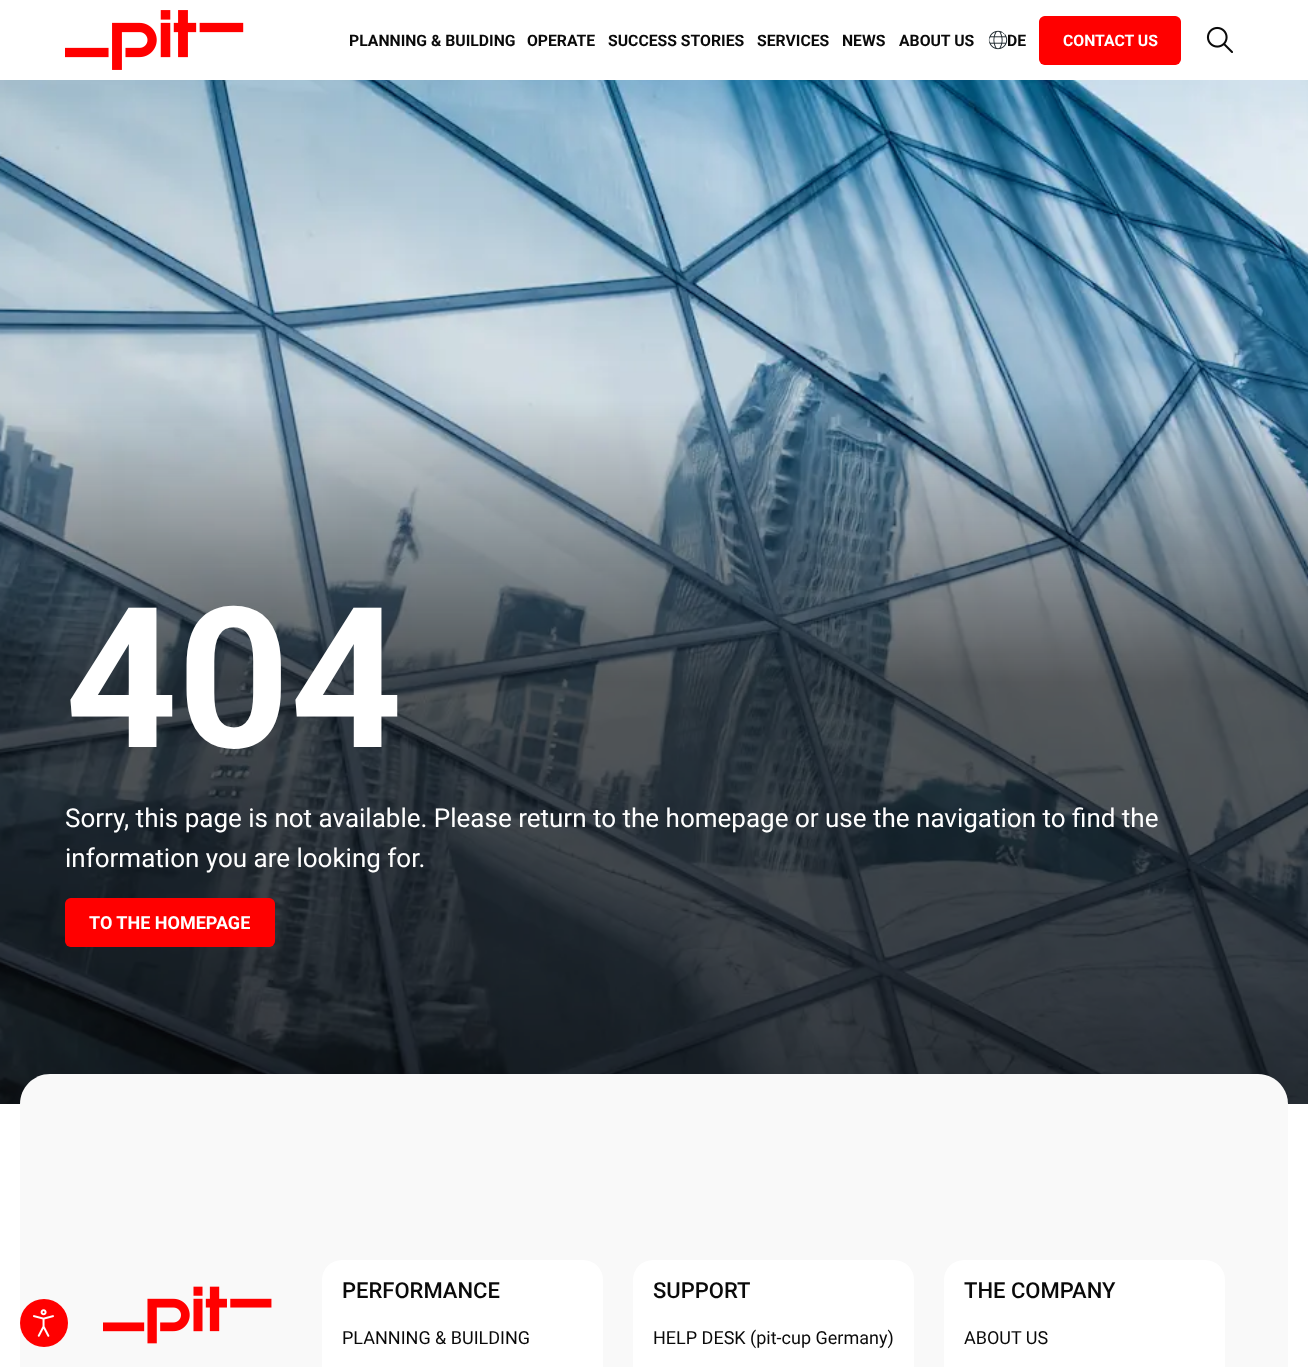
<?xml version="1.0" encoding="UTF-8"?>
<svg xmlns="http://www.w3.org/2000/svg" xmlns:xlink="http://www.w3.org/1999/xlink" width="1308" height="1367">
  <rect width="100%" height="100%" fill="#ffffff" />
  <image x="65" y="10" width="179" height="60" xlink:href="image1.png" />
  <image x="988" y="30" width="20" height="20" xlink:href="image2.png" />
  <rect x="1039" y="16" width="142" height="49" rx="6" fill="#ff0000" />
  <rect x="1039" y="16" width="142" height="49" rx="8" fill="#ff0000" />
  <image x="1206" y="26" width="27" height="27" xlink:href="image3.png" />
  <image x="0" y="80" width="1308" height="1024" xlink:href="image4.png" />
  <rect x="65" y="898" width="210" height="49" rx="6" fill="#ff0000" />
  <rect x="65" y="898" width="210" height="49" rx="8" fill="#ff0000" />
  <path d="M 50 1074 h 1208 c 16.5 0 30 13.5 30 30 v 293 h -1268 v -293 c 0 -16.5 13.5 -30 30 -30 z" fill="#f9f9f9" />
  <circle cx="44" cy="1323" r="24" fill="#ff0000" />
  <image x="33" y="1309" width="21" height="28" xlink:href="image5.png" />
  <image x="103" y="1286" width="169" height="58" xlink:href="image6.png" />
  <rect x="322" y="1260" width="281" height="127" rx="20" fill="#ffffff" />
  <rect x="633" y="1260" width="281" height="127" rx="20" fill="#ffffff" />
  <rect x="944" y="1260" width="281" height="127" rx="20" fill="#ffffff" />
  <text x="349" y="46" style="font-family: Roboto; font-size: 15.75px; font-weight: bold; fill: #0a0a0a">PLANNING &amp; BUILDING</text>
  <text x="527" y="46" style="font-family: Roboto; font-size: 15.75px; font-weight: bold; fill: #0a0a0a">OPERATE</text>
  <text x="608" y="46" style="font-family: Roboto; font-size: 15.75px; font-weight: bold; fill: #0a0a0a">SUCCESS STORIES</text>
  <text x="757" y="46" style="font-family: Roboto; font-size: 15.75px; font-weight: bold; fill: #0a0a0a">SERVICES</text>
  <text x="842" y="46" style="font-family: Roboto; font-size: 15.75px; font-weight: bold; fill: #0a0a0a">NEWS</text>
  <text x="899" y="46" style="font-family: Roboto; font-size: 15.75px; font-weight: bold; fill: #0a0a0a">ABOUT US</text>
  <text x="1007" y="46" style="font-family: Roboto; font-size: 15.75px; font-weight: bold; fill: #0a0a0a">DE</text>
  <text x="1063" y="46" style="font-family: Roboto; font-size: 15.75px; font-weight: bold; fill: #ffffff">CONTACT US</text>
  <text x="65" y="747" style="font-family: Roboto; font-size: 196px; font-weight: bold; fill: #ffffff">404</text>
  <text x="65" y="827" style="font-family: Roboto; font-size: 26px; fill: #ffffff">Sorry, this page is not available. Please return to the homepage or use the navigation to find the</text>
  <text x="65" y="867" style="font-family: Roboto; font-size: 26px; fill: #ffffff">information you are looking for.</text>
  <text x="89" y="929" style="font-family: Roboto; font-size: 18px; font-weight: bold; fill: #ffffff">TO THE HOMEPAGE</text>
  <text x="342" y="1298" style="font-family: Roboto; font-size: 22px; font-weight: 500; fill: #0a0a0a">PERFORMANCE</text>
  <text x="342" y="1344" style="font-family: Roboto; font-size: 18px; fill: #0a0a0a">PLANNING &amp; BUILDING</text>
  <text x="653" y="1298" style="font-family: Roboto; font-size: 22px; font-weight: 500; fill: #0a0a0a">SUPPORT</text>
  <text x="653" y="1344" style="font-family: Roboto; font-size: 18px; fill: #0a0a0a">HELP DESK (pit-cup Germany)</text>
  <text x="964" y="1298" style="font-family: Roboto; font-size: 22px; font-weight: 500; fill: #0a0a0a">THE COMPANY</text>
  <text x="964" y="1344" style="font-family: Roboto; font-size: 18px; fill: #0a0a0a">ABOUT US</text>
</svg>
